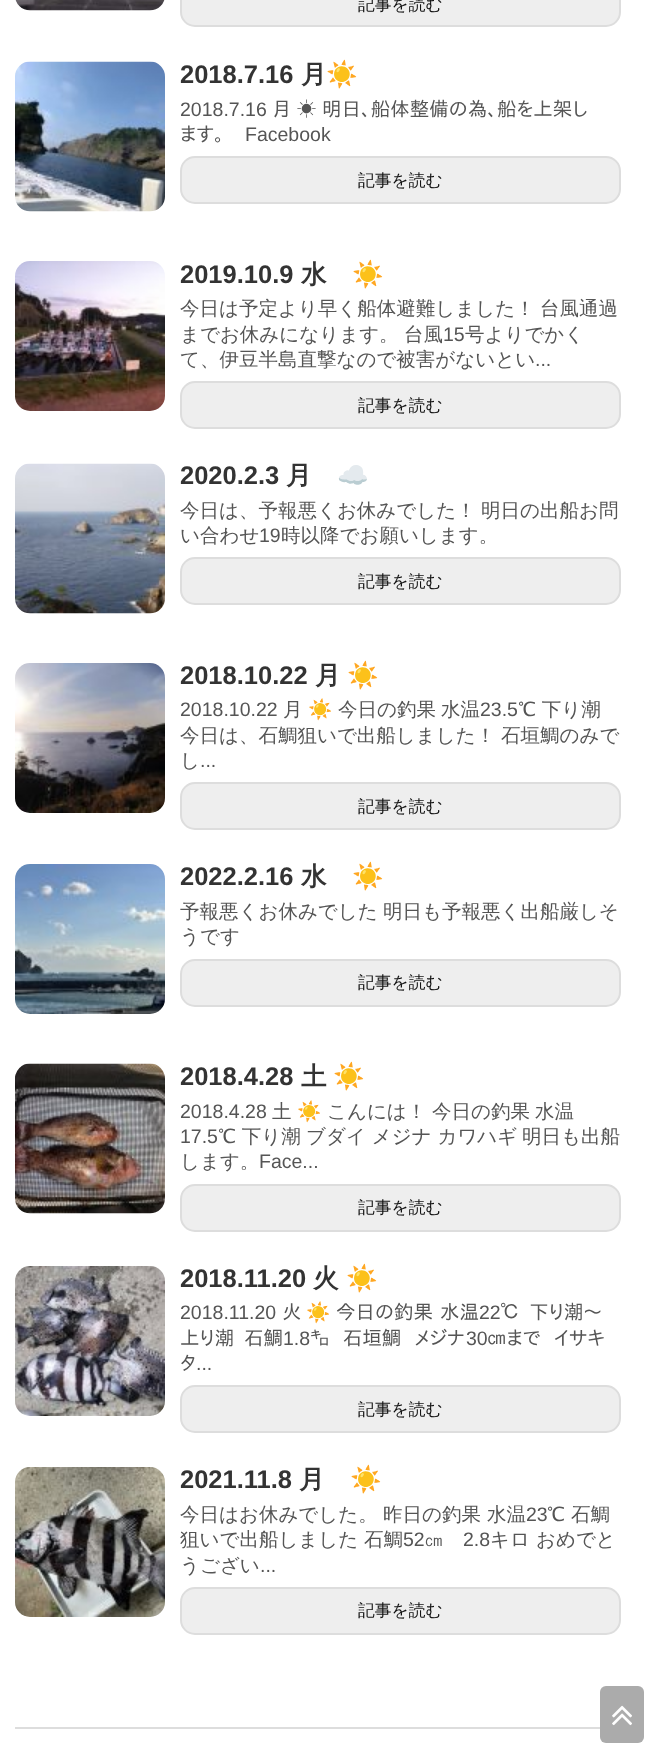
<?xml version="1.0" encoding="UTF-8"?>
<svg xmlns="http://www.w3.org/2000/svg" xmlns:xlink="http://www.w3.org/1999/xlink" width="651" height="1750">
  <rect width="100%" height="100%" fill="#ffffff" />
  <image x="15" y="0" width="150" height="11" xlink:href="image1.png" />
  <rect x="181" y="-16" width="439" height="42" rx="14" fill="#eeeeee" stroke="#dddddd" stroke-width="2" />
  <image x="15" y="61" width="150" height="151" xlink:href="image2.png" />
  <rect x="181" y="157" width="439" height="46" rx="14" fill="#eeeeee" stroke="#dddddd" stroke-width="2" />
  <image x="15" y="261" width="150" height="150" xlink:href="image3.png" />
  <rect x="181" y="382" width="439" height="46" rx="14" fill="#eeeeee" stroke="#dddddd" stroke-width="2" />
  <image x="15" y="463" width="150" height="151" xlink:href="image4.png" />
  <rect x="181" y="558" width="439" height="46" rx="14" fill="#eeeeee" stroke="#dddddd" stroke-width="2" />
  <image x="15" y="663" width="150" height="150" xlink:href="image5.png" />
  <rect x="181" y="783" width="439" height="46" rx="14" fill="#eeeeee" stroke="#dddddd" stroke-width="2" />
  <image x="15" y="864" width="150" height="150" xlink:href="image6.png" />
  <rect x="181" y="960" width="439" height="46" rx="14" fill="#eeeeee" stroke="#dddddd" stroke-width="2" />
  <image x="15" y="1063" width="150" height="151" xlink:href="image7.png" />
  <rect x="181" y="1185" width="439" height="46" rx="14" fill="#eeeeee" stroke="#dddddd" stroke-width="2" />
  <image x="15" y="1266" width="150" height="150" xlink:href="image8.png" />
  <rect x="181" y="1386" width="439" height="46" rx="14" fill="#eeeeee" stroke="#dddddd" stroke-width="2" />
  <image x="15" y="1467" width="150" height="150" xlink:href="image9.png" />
  <rect x="181" y="1588" width="439" height="46" rx="14" fill="#eeeeee" stroke="#dddddd" stroke-width="2" />
  <rect x="15" y="1727" width="621" height="2" fill="#dddddd" />
  <rect x="600" y="1686" width="44" height="57" rx="6" fill="#aaaaaa" fill-opacity="0.99" />
  <image x="612" y="1705" width="20" height="21" xlink:href="image10.png" />
  <text x="358" y="10" style="font-family: WenQuanYi Zen Hei; font-size: 16.75px; font-weight: 500; fill: #111111">記事を読む</text>
  <text x="180" y="83" style="font-family: Liberation Sans; font-size: 25.5px; font-weight: bold; fill: #333333">2018.7.16</text>
  <text x="301" y="83" style="font-family: WenQuanYi Zen Hei; font-size: 25.5px; font-weight: bold; fill: #333333">月</text>
  <text x="326" y="83" style="font-family: Noto Color Emoji; font-size: 25.5px; font-weight: bold; fill: #333333">☀️</text>
  <text x="180" y="116" style="font-family: Liberation Sans; font-size: 19.5px; fill: #555555">2018.7.16</text>
  <text x="272" y="116" style="font-family: IPAPGothic; font-size: 19.5px; fill: #555555">月 ☀</text>
  <text x="322" y="116" style="font-family: IPAPGothic; font-size: 19.5px; fill: #555555">明日、船体整備の為、船を上架し</text>
  <text x="180" y="141" style="font-family: IPAPGothic; font-size: 19.5px; fill: #555555">ます。</text>
  <text x="245" y="141" style="font-family: Liberation Sans; font-size: 19.5px; fill: #555555">Facebook</text>
  <text x="358" y="186" style="font-family: WenQuanYi Zen Hei; font-size: 16.75px; font-weight: 500; fill: #111111">記事を読む</text>
  <text x="180" y="283" style="font-family: Liberation Sans; font-size: 25.5px; font-weight: bold; fill: #333333">2019.10.9</text>
  <text x="301" y="283" style="font-family: WenQuanYi Zen Hei; font-size: 25.5px; font-weight: bold; fill: #333333">水</text>
  <text x="352" y="283" style="font-family: Noto Color Emoji; font-size: 25.5px; font-weight: bold; fill: #333333">☀️</text>
  <text x="180" y="315" style="font-family: WenQuanYi Zen Hei; font-size: 19.5px; font-weight: 500; fill: #555555">今日は予定より早く船体避難しました！</text>
  <text x="540" y="315" style="font-family: WenQuanYi Zen Hei; font-size: 19.5px; font-weight: 500; fill: #555555">台風通過</text>
  <text x="180" y="341" style="font-family: WenQuanYi Zen Hei; font-size: 19.5px; font-weight: 500; fill: #555555">までお休みになります。</text>
  <text x="404" y="341" style="font-family: WenQuanYi Zen Hei; font-size: 19.5px; font-weight: 500; fill: #555555">台風</text>
  <text x="443" y="341" style="font-family: Liberation Sans; font-size: 19.5px; fill: #555555">15</text>
  <text x="465" y="341" style="font-family: WenQuanYi Zen Hei; font-size: 19.5px; font-weight: 500; fill: #555555">号よりでかく</text>
  <text x="180" y="366" style="font-family: WenQuanYi Zen Hei; font-size: 19.5px; font-weight: 500; fill: #555555">て、伊豆半島直撃なので被害がないとい</text>
  <text x="535" y="366" style="font-family: Liberation Sans; font-size: 19.5px; fill: #555555">...</text>
  <text x="358" y="411" style="font-family: WenQuanYi Zen Hei; font-size: 16.75px; font-weight: 500; fill: #111111">記事を読む</text>
  <text x="180" y="484" style="font-family: Liberation Sans; font-size: 25.5px; font-weight: bold; fill: #333333">2020.2.3</text>
  <text x="286" y="484" style="font-family: WenQuanYi Zen Hei; font-size: 25.5px; font-weight: bold; fill: #333333">月</text>
  <text x="337" y="484" style="font-family: Noto Color Emoji; font-size: 25.5px; font-weight: bold; fill: #333333">☁️</text>
  <text x="180" y="517" style="font-family: WenQuanYi Zen Hei; font-size: 19.5px; font-weight: 500; fill: #555555">今日は、予報悪くお休みでした！</text>
  <text x="481" y="517" style="font-family: WenQuanYi Zen Hei; font-size: 19.5px; font-weight: 500; fill: #555555">明日の出船お問</text>
  <text x="180" y="542" style="font-family: WenQuanYi Zen Hei; font-size: 19.5px; font-weight: 500; fill: #555555">い合わせ</text>
  <text x="259" y="542" style="font-family: Liberation Sans; font-size: 19.5px; fill: #555555">19</text>
  <text x="281" y="542" style="font-family: WenQuanYi Zen Hei; font-size: 19.5px; font-weight: 500; fill: #555555">時以降でお願いします。</text>
  <text x="358" y="587" style="font-family: WenQuanYi Zen Hei; font-size: 16.75px; font-weight: 500; fill: #111111">記事を読む</text>
  <text x="180" y="684" style="font-family: Liberation Sans; font-size: 25.5px; font-weight: bold; fill: #333333">2018.10.22</text>
  <text x="315" y="684" style="font-family: WenQuanYi Zen Hei; font-size: 25.5px; font-weight: bold; fill: #333333">月</text>
  <text x="347" y="684" style="font-family: Noto Color Emoji; font-size: 25.5px; font-weight: bold; fill: #333333">☀️</text>
  <text x="180" y="716" style="font-family: Liberation Sans; font-size: 19.5px; fill: #555555">2018.10.22</text>
  <text x="283" y="716" style="font-family: WenQuanYi Zen Hei; font-size: 19.5px; font-weight: 500; fill: #555555">月</text>
  <text x="308" y="716" style="font-family: Noto Color Emoji; font-size: 19.5px; fill: #555555">☀️</text>
  <text x="338" y="716" style="font-family: WenQuanYi Zen Hei; font-size: 19.5px; font-weight: 500; fill: #555555">今日の釣果</text>
  <text x="441" y="716" style="font-family: WenQuanYi Zen Hei; font-size: 19.5px; font-weight: 500; fill: #555555">水温</text>
  <text x="480" y="716" style="font-family: Liberation Sans; font-size: 19.5px; fill: #555555">23.5</text>
  <text x="518" y="716" style="font-family: WenQuanYi Zen Hei; font-size: 19.5px; font-weight: 500; fill: #555555">℃ 下り潮</text>
  <text x="180" y="742" style="font-family: WenQuanYi Zen Hei; font-size: 19.5px; font-weight: 500; fill: #555555">今日は、石鯛狙いで出船しました！</text>
  <text x="501" y="742" style="font-family: WenQuanYi Zen Hei; font-size: 19.5px; font-weight: 500; fill: #555555">石垣鯛のみで</text>
  <text x="180" y="767" style="font-family: WenQuanYi Zen Hei; font-size: 19.5px; font-weight: 500; fill: #555555">し</text>
  <text x="200" y="767" style="font-family: Liberation Sans; font-size: 19.5px; fill: #555555">...</text>
  <text x="358" y="812" style="font-family: WenQuanYi Zen Hei; font-size: 16.75px; font-weight: 500; fill: #111111">記事を読む</text>
  <text x="180" y="885" style="font-family: Liberation Sans; font-size: 25.5px; font-weight: bold; fill: #333333">2022.2.16</text>
  <text x="301" y="885" style="font-family: WenQuanYi Zen Hei; font-size: 25.5px; font-weight: bold; fill: #333333">水</text>
  <text x="352" y="885" style="font-family: Noto Color Emoji; font-size: 25.5px; font-weight: bold; fill: #333333">☀️</text>
  <text x="180" y="918" style="font-family: WenQuanYi Zen Hei; font-size: 19.5px; font-weight: 500; fill: #555555">予報悪くお休みでした</text>
  <text x="383" y="918" style="font-family: WenQuanYi Zen Hei; font-size: 19.5px; font-weight: 500; fill: #555555">明日も予報悪く出船厳しそ</text>
  <text x="180" y="943" style="font-family: WenQuanYi Zen Hei; font-size: 19.5px; font-weight: 500; fill: #555555">うです</text>
  <text x="358" y="988" style="font-family: WenQuanYi Zen Hei; font-size: 16.75px; font-weight: 500; fill: #111111">記事を読む</text>
  <text x="180" y="1085" style="font-family: Liberation Sans; font-size: 25.5px; font-weight: bold; fill: #333333">2018.4.28</text>
  <text x="301" y="1085" style="font-family: WenQuanYi Zen Hei; font-size: 25.5px; font-weight: bold; fill: #333333">土</text>
  <text x="333" y="1085" style="font-family: Noto Color Emoji; font-size: 25.5px; font-weight: bold; fill: #333333">☀️</text>
  <text x="180" y="1118" style="font-family: Liberation Sans; font-size: 19.5px; fill: #555555">2018.4.28</text>
  <text x="272" y="1118" style="font-family: WenQuanYi Zen Hei; font-size: 19.5px; font-weight: 500; fill: #555555">土</text>
  <text x="297" y="1118" style="font-family: Noto Color Emoji; font-size: 19.5px; fill: #555555">☀️</text>
  <text x="327" y="1118" style="font-family: WenQuanYi Zen Hei; font-size: 19.5px; font-weight: 500; fill: #555555">こんには！</text>
  <text x="432" y="1118" style="font-family: WenQuanYi Zen Hei; font-size: 19.5px; font-weight: 500; fill: #555555">今日の釣果</text>
  <text x="535" y="1118" style="font-family: WenQuanYi Zen Hei; font-size: 19.5px; font-weight: 500; fill: #555555">水温</text>
  <text x="180" y="1143" style="font-family: Liberation Sans; font-size: 19.5px; fill: #555555">17.5</text>
  <text x="218" y="1143" style="font-family: WenQuanYi Zen Hei; font-size: 19.5px; font-weight: 500; fill: #555555">℃ 下り潮</text>
  <text x="306" y="1143" style="font-family: WenQuanYi Zen Hei; font-size: 19.5px; font-weight: 500; fill: #555555">ブダイ メジナ カワハギ</text>
  <text x="522" y="1143" style="font-family: WenQuanYi Zen Hei; font-size: 19.5px; font-weight: 500; fill: #555555">明日も出船</text>
  <text x="180" y="1168" style="font-family: WenQuanYi Zen Hei; font-size: 19.5px; font-weight: 500; fill: #555555">します。</text>
  <text x="259" y="1168" style="font-family: Liberation Sans; font-size: 19.5px; fill: #555555">Face...</text>
  <text x="358" y="1213" style="font-family: WenQuanYi Zen Hei; font-size: 16.75px; font-weight: 500; fill: #111111">記事を読む</text>
  <text x="180" y="1287" style="font-family: Liberation Sans; font-size: 25.5px; font-weight: bold; fill: #333333">2018.11.20</text>
  <text x="313" y="1287" style="font-family: WenQuanYi Zen Hei; font-size: 25.5px; font-weight: bold; fill: #333333">火</text>
  <text x="346" y="1287" style="font-family: Noto Color Emoji; font-size: 25.5px; font-weight: bold; fill: #333333">☀️</text>
  <text x="180" y="1319" style="font-family: Liberation Sans; font-size: 19.5px; fill: #555555">2018.11.20</text>
  <text x="282" y="1319" style="font-family: IPAPGothic; font-size: 19.5px; fill: #555555">火</text>
  <text x="306" y="1319" style="font-family: Noto Color Emoji; font-size: 19.5px; fill: #555555">☀️</text>
  <text x="336" y="1319" style="font-family: IPAPGothic; font-size: 19.5px; fill: #555555">今日の釣果</text>
  <text x="440" y="1319" style="font-family: IPAPGothic; font-size: 19.5px; fill: #555555">水温</text>
  <text x="479" y="1319" style="font-family: Liberation Sans; font-size: 19.5px; fill: #555555">22</text>
  <text x="500" y="1319" word-spacing="5" style="font-family: IPAPGothic; font-size: 19.5px; fill: #555555">℃ 下り潮〜</text>
  <text x="180" y="1345" style="font-family: IPAPGothic; font-size: 19.5px; fill: #555555">上り潮</text>
  <text x="244" y="1345" style="font-family: IPAPGothic; font-size: 19.5px; fill: #555555">石鯛</text>
  <text x="283" y="1345" style="font-family: Liberation Sans; font-size: 19.5px; fill: #555555">1.8</text>
  <text x="310" y="1345" word-spacing="8" style="font-family: IPAPGothic; font-size: 19.5px; fill: #555555">㌔ 石垣鯛 メジナ</text>
  <text x="466" y="1345" style="font-family: Liberation Sans; font-size: 19.5px; fill: #555555">30</text>
  <text x="487" y="1345" word-spacing="8" style="font-family: IPAPGothic; font-size: 19.5px; fill: #555555">㎝まで イサキ</text>
  <text x="180" y="1370" style="font-family: IPAPGothic; font-size: 19.5px; fill: #555555">タ</text>
  <text x="196" y="1370" style="font-family: Liberation Sans; font-size: 19.5px; fill: #555555">...</text>
  <text x="358" y="1415" style="font-family: WenQuanYi Zen Hei; font-size: 16.75px; font-weight: 500; fill: #111111">記事を読む</text>
  <text x="180" y="1488" style="font-family: Liberation Sans; font-size: 25.5px; font-weight: bold; fill: #333333">2021.11.8</text>
  <text x="299" y="1488" style="font-family: WenQuanYi Zen Hei; font-size: 25.5px; font-weight: bold; fill: #333333">月</text>
  <text x="350" y="1488" style="font-family: Noto Color Emoji; font-size: 25.5px; font-weight: bold; fill: #333333">☀️</text>
  <text x="180" y="1521" style="font-family: WenQuanYi Zen Hei; font-size: 19.5px; font-weight: 500; fill: #555555">今日はお休みでした。</text>
  <text x="383" y="1521" style="font-family: WenQuanYi Zen Hei; font-size: 19.5px; font-weight: 500; fill: #555555">昨日の釣果</text>
  <text x="487" y="1521" style="font-family: WenQuanYi Zen Hei; font-size: 19.5px; font-weight: 500; fill: #555555">水温</text>
  <text x="526" y="1521" style="font-family: Liberation Sans; font-size: 19.5px; fill: #555555">23</text>
  <text x="547" y="1521" style="font-family: WenQuanYi Zen Hei; font-size: 19.5px; font-weight: 500; fill: #555555">℃</text>
  <text x="571" y="1521" style="font-family: WenQuanYi Zen Hei; font-size: 19.5px; font-weight: 500; fill: #555555">石鯛</text>
  <text x="180" y="1546" style="font-family: WenQuanYi Zen Hei; font-size: 19.5px; font-weight: 500; fill: #555555">狙いで出船しました</text>
  <text x="364" y="1546" style="font-family: WenQuanYi Zen Hei; font-size: 19.5px; font-weight: 500; fill: #555555">石鯛</text>
  <text x="403" y="1546" style="font-family: Liberation Sans; font-size: 19.5px; fill: #555555">52</text>
  <text x="424" y="1546" style="font-family: WenQuanYi Zen Hei; font-size: 19.5px; font-weight: 500; fill: #555555">㎝</text>
  <text x="463" y="1546" style="font-family: Liberation Sans; font-size: 19.5px; fill: #555555">2.8</text>
  <text x="490" y="1546" style="font-family: WenQuanYi Zen Hei; font-size: 19.5px; font-weight: 500; fill: #555555">キロ</text>
  <text x="536" y="1546" style="font-family: WenQuanYi Zen Hei; font-size: 19.5px; font-weight: 500; fill: #555555">おめでと</text>
  <text x="180" y="1572" style="font-family: WenQuanYi Zen Hei; font-size: 19.5px; font-weight: 500; fill: #555555">うござい</text>
  <text x="260" y="1572" style="font-family: Liberation Sans; font-size: 19.5px; fill: #555555">...</text>
  <text x="358" y="1616" style="font-family: WenQuanYi Zen Hei; font-size: 16.75px; font-weight: 500; fill: #111111">記事を読む</text>
</svg>
